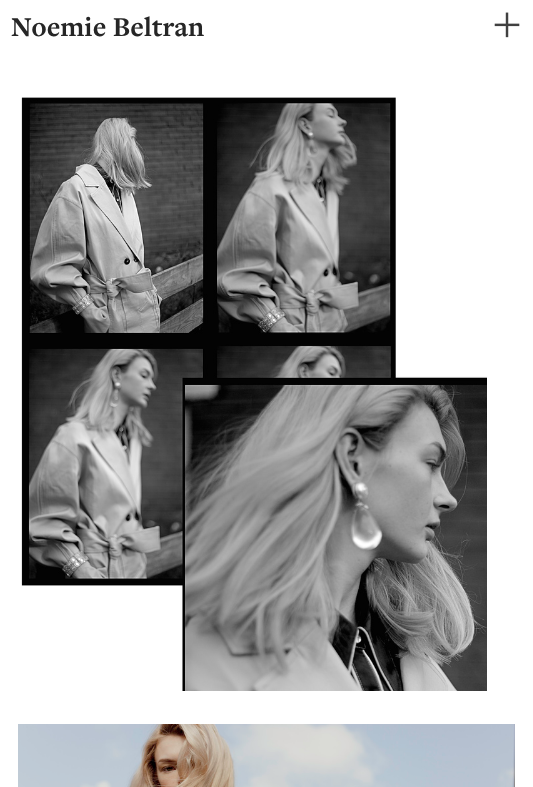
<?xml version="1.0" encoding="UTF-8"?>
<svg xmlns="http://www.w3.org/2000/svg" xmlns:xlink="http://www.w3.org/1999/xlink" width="533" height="787">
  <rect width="100%" height="100%" fill="#ffffff" />
  <image x="21" y="97" width="466" height="594" xlink:href="image1.png" />
  <image x="18" y="724" width="497" height="63" xlink:href="image2.png" />
  <image x="494" y="12" width="26" height="26" xlink:href="image3.png" />
  <text x="11" y="36" style="font-family: 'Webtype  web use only'; font-size: 28.25px; font-weight: bold; fill: #262626">Noemie Beltran</text>
</svg>
